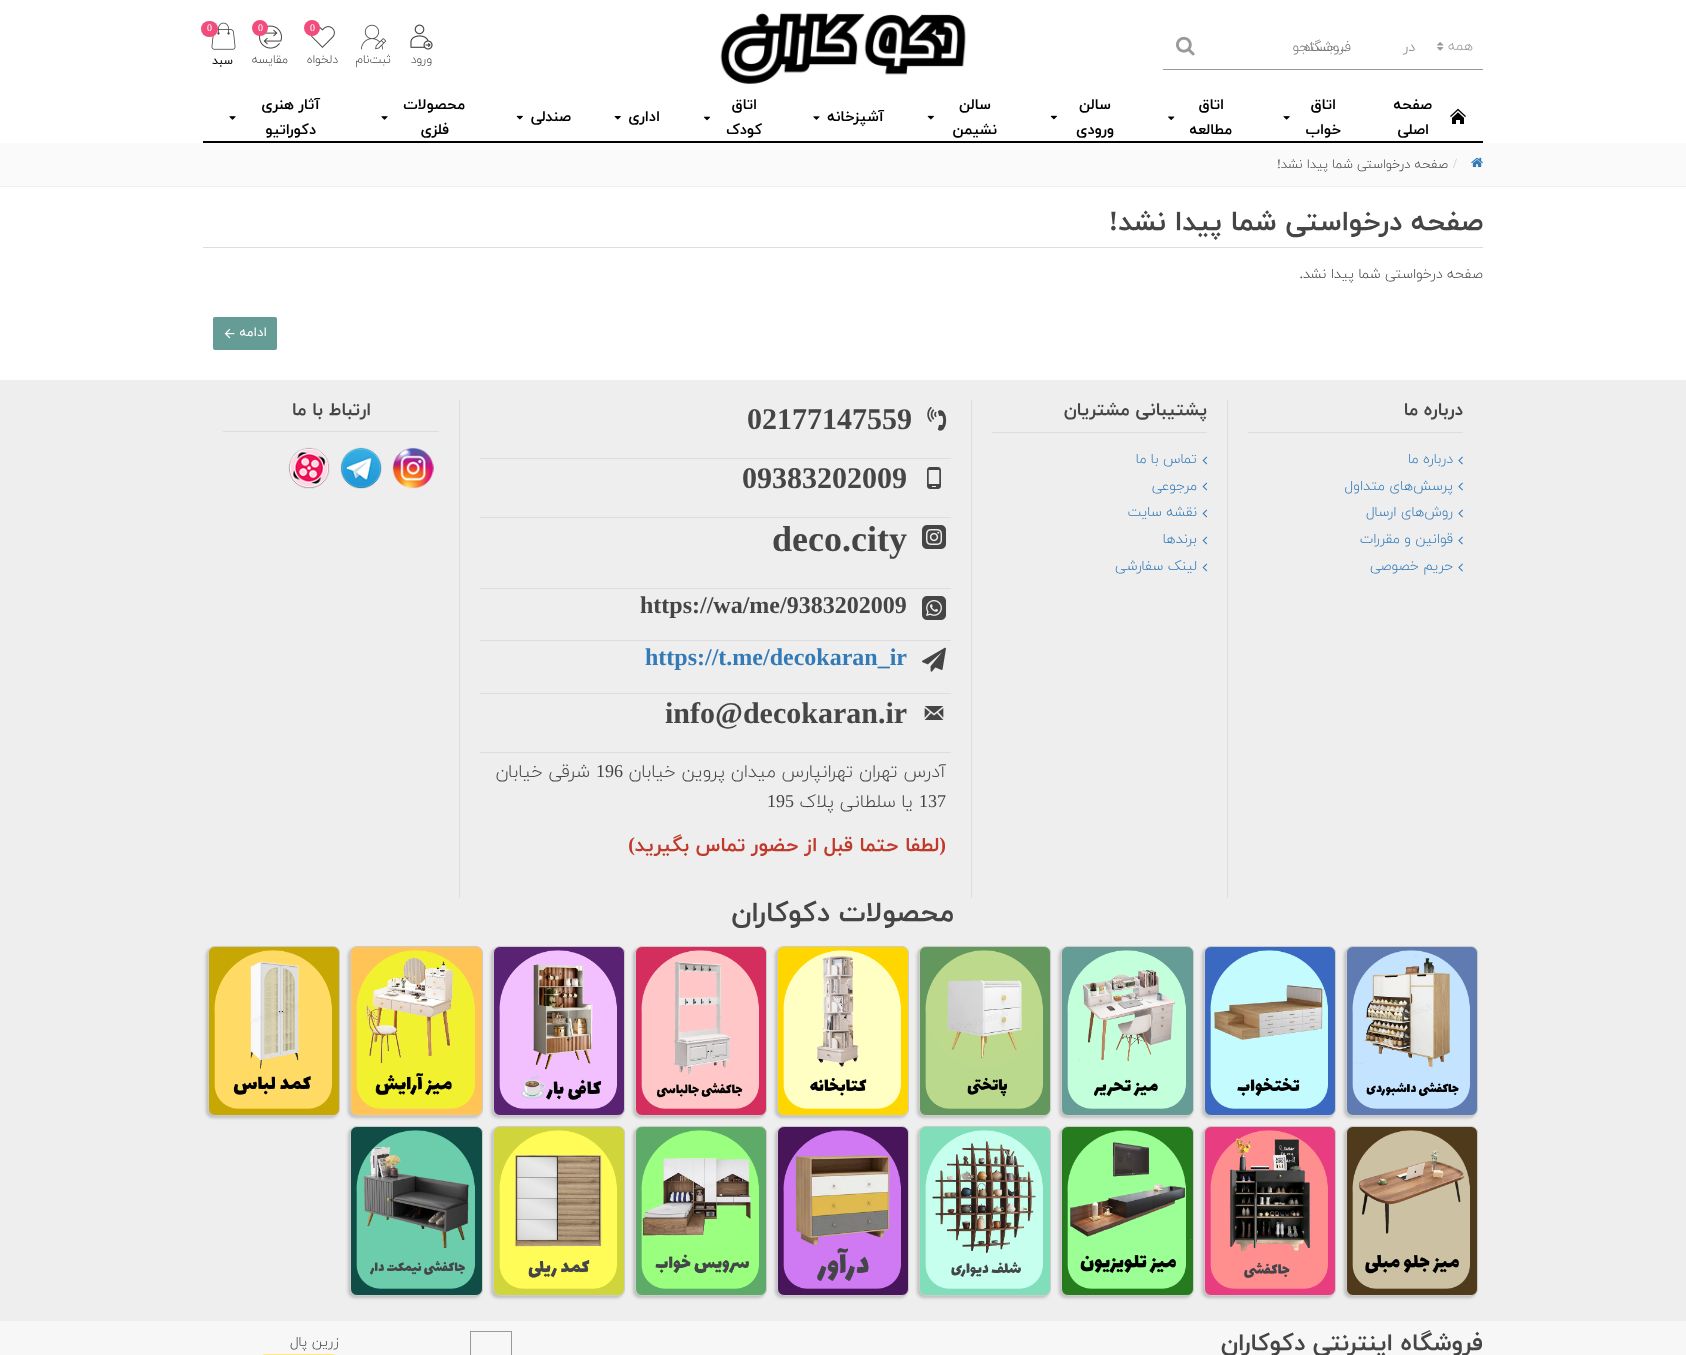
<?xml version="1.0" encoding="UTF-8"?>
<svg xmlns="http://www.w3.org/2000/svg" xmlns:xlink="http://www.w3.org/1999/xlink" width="1686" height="1355">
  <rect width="100%" height="100%" fill="#ffffff" />
  <rect x="1163" y="69" width="320" height="1" fill="#999999" />
  <image x="1437" y="42" width="7" height="9" xlink:href="image1.png" />
  <image x="1176" y="36" width="19" height="20" xlink:href="image2.png" />
  <image x="720" y="13" width="246" height="71" xlink:href="image3.png" />
  <image x="410" y="24" width="23" height="26" xlink:href="image4.png" />
  <image x="361" y="24" width="25" height="26" xlink:href="image5.png" />
  <image x="310" y="26" width="25" height="22" xlink:href="image6.png" />
  <circle cx="312" cy="28" r="8" fill="#f04d7d" />
  <image x="259" y="25" width="23" height="24" xlink:href="image7.png" />
  <circle cx="260" cy="28" r="8" fill="#f04d7d" />
  <image x="211" y="22" width="25" height="28" xlink:href="image8.png" />
  <rect x="201" y="21" width="17" height="16" rx="8" fill="#f04d7d" />
  <rect x="203" y="141" width="1280" height="2" fill="#000000" />
  <image x="1450" y="108" width="16" height="16" xlink:href="image9.png" />
  <image x="1283" y="116" width="7" height="4" xlink:href="image10.png" />
  <image x="1168" y="116" width="7" height="4" xlink:href="image11.png" />
  <image x="1050" y="115" width="7" height="5" xlink:href="image12.png" />
  <image x="927" y="115" width="7" height="5" xlink:href="image13.png" />
  <image x="813" y="116" width="7" height="4" xlink:href="image14.png" />
  <image x="703" y="116" width="8" height="5" xlink:href="image15.png" />
  <image x="614" y="116" width="7" height="4" xlink:href="image16.png" />
  <image x="516" y="115" width="7" height="5" xlink:href="image17.png" />
  <image x="381" y="116" width="7" height="4" xlink:href="image18.png" />
  <image x="229" y="116" width="7" height="4" xlink:href="image18.png" />
  <rect y="143" width="1686" height="43" fill="#fafafa" />
  <rect y="186" width="1686" height="1" fill="#eeeeee" />
  <image x="1471" y="157" width="12" height="11" xlink:href="image19.png" />
  <rect x="203" y="247" width="1280" height="1" fill="#dddddd" />
  <rect x="213" y="317" width="64" height="33" rx="2" fill="#659c96" />
  <image x="224" y="328" width="11" height="11" xlink:href="image20.png" />
  <rect y="1321" width="1686" height="34" fill="#f7f7f7" />
  <rect y="380" width="1686" height="941" fill="#eeeeee" />
  <rect x="1227" y="400" width="1" height="498" fill="#dddddd" />
  <rect x="1248" y="432" width="215" height="1" fill="#dddddd" />
  <image x="1458" y="456" width="5" height="9" xlink:href="image21.png" />
  <image x="1458" y="482" width="5" height="9" xlink:href="image21.png" />
  <image x="1458" y="509" width="5" height="9" xlink:href="image21.png" />
  <image x="1458" y="536" width="5" height="9" xlink:href="image21.png" />
  <image x="1458" y="563" width="5" height="9" xlink:href="image21.png" />
  <rect x="971" y="400" width="1" height="498" fill="#dddddd" />
  <rect x="992" y="432" width="215" height="1" fill="#dddddd" />
  <image x="1202" y="456" width="6" height="9" xlink:href="image22.png" />
  <image x="1202" y="482" width="6" height="9" xlink:href="image22.png" />
  <image x="1202" y="509" width="6" height="9" xlink:href="image22.png" />
  <image x="1202" y="536" width="6" height="9" xlink:href="image22.png" />
  <image x="1202" y="563" width="6" height="9" xlink:href="image22.png" />
  <rect x="459" y="400" width="1" height="498" fill="#dddddd" />
  <rect x="480" y="458" width="471" height="1" fill="#dddddd" />
  <image x="927" y="407" width="20" height="24" xlink:href="image23.png" />
  <rect x="480" y="517" width="471" height="1" fill="#dddddd" />
  <image x="927" y="467" width="14" height="22" xlink:href="image24.png" />
  <rect x="480" y="588" width="471" height="1" fill="#dddddd" />
  <image x="922" y="525" width="24" height="24" xlink:href="image25.png" />
  <rect x="480" y="640" width="471" height="1" fill="#dddddd" />
  <image x="922" y="596" width="24" height="24" xlink:href="image26.png" />
  <rect x="480" y="693" width="471" height="1" fill="#dddddd" />
  <image x="922" y="647" width="24" height="25" xlink:href="image27.png" />
  <rect x="480" y="752" width="471" height="1" fill="#dddddd" />
  <image x="924" y="706" width="20" height="14" xlink:href="image28.png" />
  <rect x="223" y="431" width="216" height="1" fill="#dddddd" />
  <image x="392" y="447" width="42" height="42" xlink:href="image29.png" />
  <image x="340" y="447" width="42" height="42" xlink:href="image30.png" />
  <image x="288" y="447" width="42" height="42" xlink:href="image31.png" />
  <rect x="1344" y="948" width="132" height="170" rx="7" fill="#000000" fill-opacity="0.2" filter="blur(1.5px)" />
  <rect x="1346.5" y="946.5" width="131" height="169" rx="6.5" fill="#5f7bb1" stroke="#cccccc" />
  <image x="1351" y="950" width="119" height="159" xlink:href="image32.png" />
  <rect x="1202" y="948" width="132" height="170" rx="7" fill="#000000" fill-opacity="0.2" filter="blur(1.5px)" />
  <rect x="1204.5" y="946.5" width="131" height="169" rx="6.5" fill="#3b68c0" stroke="#cccccc" />
  <image x="1210" y="950" width="118" height="159" xlink:href="image33.png" />
  <rect x="1059" y="948" width="133" height="170" rx="7" fill="#000000" fill-opacity="0.2" filter="blur(1.5px)" />
  <rect x="1061.5" y="946.5" width="132" height="169" rx="6.5" fill="#659c96" stroke="#cccccc" />
  <image x="1067" y="950" width="119" height="159" xlink:href="image34.png" />
  <rect x="917" y="948" width="132" height="170" rx="7" fill="#000000" fill-opacity="0.2" filter="blur(1.5px)" />
  <rect x="919.5" y="946.5" width="131" height="169" rx="6.5" fill="#63975e" stroke="#cccccc" />
  <image x="925" y="950" width="118" height="159" xlink:href="image35.png" />
  <rect x="775" y="948" width="132" height="170" rx="7" fill="#000000" fill-opacity="0.2" filter="blur(1.5px)" />
  <rect x="777.5" y="946.5" width="131" height="169" rx="6.5" fill="#ffd600" stroke="#cccccc" />
  <image x="783" y="950" width="118" height="159" xlink:href="image36.png" />
  <rect x="633" y="948" width="132" height="170" rx="7" fill="#000000" fill-opacity="0.2" filter="blur(1.5px)" />
  <rect x="635.5" y="946.5" width="131" height="169" rx="6.5" fill="#d42e5f" stroke="#cccccc" />
  <image x="641" y="950" width="118" height="159" xlink:href="image37.png" />
  <rect x="491" y="948" width="132" height="170" rx="7" fill="#000000" fill-opacity="0.2" filter="blur(1.5px)" />
  <rect x="493.5" y="946.5" width="131" height="169" rx="6.5" fill="#5a2273" stroke="#cccccc" />
  <image x="499" y="950" width="118" height="159" xlink:href="image38.png" />
  <rect x="348" y="948" width="133" height="170" rx="7" fill="#000000" fill-opacity="0.2" filter="blur(1.5px)" />
  <rect x="350.5" y="946.5" width="132" height="169" rx="6.5" fill="#ffc356" stroke="#cccccc" />
  <image x="356" y="950" width="119" height="159" xlink:href="image39.png" />
  <rect x="206" y="948" width="132" height="170" rx="7" fill="#000000" fill-opacity="0.2" filter="blur(1.5px)" />
  <rect x="208.5" y="946.5" width="131" height="169" rx="6.5" fill="#c6a704" stroke="#cccccc" />
  <image x="214" y="950" width="118" height="159" xlink:href="image40.png" />
  <rect x="1344" y="1128" width="132" height="170" rx="7" fill="#000000" fill-opacity="0.2" filter="blur(1.5px)" />
  <rect x="1346.5" y="1126.5" width="131" height="169" rx="6.5" fill="#4f3a1b" stroke="#cccccc" />
  <image x="1352" y="1130" width="118" height="159" xlink:href="image41.png" />
  <rect x="1202" y="1128" width="132" height="170" rx="7" fill="#000000" fill-opacity="0.2" filter="blur(1.5px)" />
  <rect x="1204.5" y="1126.5" width="131" height="169" rx="6.5" fill="#e83d81" stroke="#cccccc" />
  <image x="1210" y="1130" width="118" height="159" xlink:href="image42.png" />
  <rect x="1059" y="1128" width="133" height="170" rx="7" fill="#000000" fill-opacity="0.2" filter="blur(1.5px)" />
  <rect x="1061.5" y="1126.5" width="132" height="169" rx="6.5" fill="#257b1e" stroke="#cccccc" />
  <image x="1067" y="1130" width="124" height="159" xlink:href="image43.png" />
  <rect x="917" y="1128" width="132" height="170" rx="7" fill="#000000" fill-opacity="0.2" filter="blur(1.5px)" />
  <rect x="919.5" y="1126.5" width="131" height="169" rx="6.5" fill="#80dfba" stroke="#cccccc" />
  <image x="925" y="1130" width="118" height="159" xlink:href="image44.png" />
  <rect x="775" y="1128" width="132" height="170" rx="7" fill="#000000" fill-opacity="0.2" filter="blur(1.5px)" />
  <rect x="777.5" y="1126.5" width="131" height="169" rx="6.5" fill="#48155b" stroke="#cccccc" />
  <image x="783" y="1130" width="118" height="159" xlink:href="image45.png" />
  <rect x="633" y="1128" width="132" height="170" rx="7" fill="#000000" fill-opacity="0.2" filter="blur(1.5px)" />
  <rect x="635.5" y="1126.5" width="131" height="169" rx="6.5" fill="#5eab69" stroke="#cccccc" />
  <image x="641" y="1130" width="118" height="159" xlink:href="image46.png" />
  <rect x="491" y="1128" width="132" height="170" rx="7" fill="#000000" fill-opacity="0.2" filter="blur(1.5px)" />
  <rect x="493.5" y="1126.5" width="131" height="169" rx="6.5" fill="#cfd53b" stroke="#cccccc" />
  <image x="499" y="1130" width="118" height="159" xlink:href="image47.png" />
  <rect x="348" y="1128" width="133" height="170" rx="7" fill="#000000" fill-opacity="0.2" filter="blur(1.5px)" />
  <rect x="350.5" y="1126.5" width="132" height="169" rx="6.5" fill="#104d47" stroke="#cccccc" />
  <image x="356" y="1130" width="119" height="159" xlink:href="image48.png" />
  <rect x="470.5" y="1331.5" width="41" height="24" fill="none" stroke="#999999" />
  <image x="262" y="1354" width="74" height="1" xlink:href="image49.png" />
  <text x="1473" y="50" style="font-family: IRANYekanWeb; font-size: 14px; font-weight: 300; direction: rtl; fill: #999999">همه</text>
  <text x="1347" y="51" style="font-family: Liberation Serif; font-size: 14px; direction: rtl; fill: #757575">...</text>
  <text x="1336" y="51" style="font-family: IRANYekanWeb; font-size: 14px; font-weight: 300; direction: rtl; fill: #757575">جستجو</text>
  <text x="1415" y="51" word-spacing="48" style="font-family: IRANYekanWeb; font-size: 14px; font-weight: 300; direction: rtl; fill: #757575">در فروشگاه</text>
  <text x="432" y="63" style="font-family: IRANYekanWeb; font-size: 12px; font-weight: 300; direction: rtl; fill: #454545">ورود</text>
  <text x="391" y="63" style="font-family: IRANYekanWeb; font-size: 12px; font-weight: 300; direction: rtl; fill: #454545">ثبت‌نام</text>
  <text x="310" y="31" style="font-family: Liberation Serif; font-size: 10px; fill: #ffffff">0</text>
  <text x="338" y="63" style="font-family: IRANYekanWeb; font-size: 12px; font-weight: 300; direction: rtl; fill: #454545">دلخواه</text>
  <text x="258" y="31" style="font-family: Liberation Serif; font-size: 10px; fill: #ffffff">0</text>
  <text x="288" y="63" style="font-family: IRANYekanWeb; font-size: 12px; font-weight: 300; direction: rtl; fill: #454545">مقایسه</text>
  <text x="207" y="31" style="font-family: Liberation Serif; font-size: 10px; fill: #ffffff">0</text>
  <text x="233" y="64" style="font-family: IRANYekanWeb; font-size: 12px; direction: rtl; fill: #000000">سبد</text>
  <text x="1432" y="109" style="font-family: IRANYekanWeb; font-size: 15px; font-weight: bold; direction: rtl; fill: #000000">صفحه</text>
  <text x="1429" y="134" style="font-family: IRANYekanWeb; font-size: 15px; font-weight: bold; direction: rtl; fill: #000000">اصلی</text>
  <text x="1336" y="109" style="font-family: IRANYekanWeb; font-size: 15px; font-weight: bold; direction: rtl; fill: #000000">اتاق</text>
  <text x="1341" y="134" style="font-family: IRANYekanWeb; font-size: 15px; font-weight: bold; direction: rtl; fill: #000000">خواب</text>
  <text x="1224" y="109" style="font-family: IRANYekanWeb; font-size: 15px; font-weight: bold; direction: rtl; fill: #000000">اتاق</text>
  <text x="1232" y="134" style="font-family: IRANYekanWeb; font-size: 15px; font-weight: bold; direction: rtl; fill: #000000">مطالعه</text>
  <text x="1111" y="109" style="font-family: IRANYekanWeb; font-size: 15px; font-weight: bold; direction: rtl; fill: #000000">سالن</text>
  <text x="1114" y="134" style="font-family: IRANYekanWeb; font-size: 15px; font-weight: bold; direction: rtl; fill: #000000">ورودی</text>
  <text x="991" y="109" style="font-family: IRANYekanWeb; font-size: 15px; font-weight: bold; direction: rtl; fill: #000000">سالن</text>
  <text x="997" y="134" style="font-family: IRANYekanWeb; font-size: 15px; font-weight: bold; direction: rtl; fill: #000000">نشیمن</text>
  <text x="884" y="121" style="font-family: IRANYekanWeb; font-size: 15px; font-weight: bold; direction: rtl; fill: #000000">آشپزخانه</text>
  <text x="757" y="109" style="font-family: IRANYekanWeb; font-size: 15px; font-weight: bold; direction: rtl; fill: #000000">اتاق</text>
  <text x="762" y="134" style="font-family: IRANYekanWeb; font-size: 15px; font-weight: bold; direction: rtl; fill: #000000">کودک</text>
  <text x="660" y="121" style="font-family: IRANYekanWeb; font-size: 15px; font-weight: bold; direction: rtl; fill: #000000">اداری</text>
  <text x="571" y="121" style="font-family: IRANYekanWeb; font-size: 15px; font-weight: bold; direction: rtl; fill: #000000">صندلی</text>
  <text x="465" y="109" style="font-family: IRANYekanWeb; font-size: 15px; font-weight: bold; direction: rtl; fill: #000000">محصولات</text>
  <text x="449" y="134" style="font-family: IRANYekanWeb; font-size: 15px; font-weight: bold; direction: rtl; fill: #000000">فلزی</text>
  <text x="320" y="109" style="font-family: IRANYekanWeb; font-size: 15px; font-weight: bold; direction: rtl; fill: #000000">آثار هنری</text>
  <text x="316" y="134" style="font-family: IRANYekanWeb; font-size: 15px; font-weight: bold; direction: rtl; fill: #000000">دکوراتیو</text>
  <text x="1453" y="168" style="font-family: Liberation Serif; font-size: 14px; fill: #cccccc">/</text>
  <text x="1448" y="168" style="font-family: IRANYekanWeb; font-size: 13px; font-weight: 300; direction: rtl; fill: #454545">صفحه درخواستی شما پیدا نشد</text>
  <text x="1281" y="168" style="font-family: Liberation Serif; font-size: 13px; direction: rtl; fill: #454545">!</text>
  <text x="1483" y="230" style="font-family: IRANYekanWeb; font-size: 28px; font-weight: bold; direction: rtl; fill: #454545">صفحه درخواستی شما پیدا نشد</text>
  <text x="1118" y="230" style="font-family: Liberation Serif; font-size: 28px; font-weight: bold; direction: rtl; fill: #454545">!</text>
  <text x="1483" y="278" style="font-family: IRANYekanWeb; font-size: 14px; font-weight: 300; direction: rtl; fill: #454545">صفحه درخواستی شما پیدا نشد</text>
  <text x="1303" y="278" style="font-family: Liberation Serif; font-size: 14px; direction: rtl; fill: #454545">.</text>
  <text x="267" y="336" style="font-family: IRANYekanWeb; font-size: 13px; direction: rtl; fill: #ffffff">ادامه</text>
  <text x="1463" y="415" style="font-family: IRANYekanWeb; font-size: 18px; font-weight: bold; direction: rtl; fill: #454545">درباره ما</text>
  <text x="1453" y="463" style="font-family: IRANYekanWeb; font-size: 14px; font-weight: 300; direction: rtl; fill: #337ab7">درباره ما</text>
  <text x="1453" y="490" style="font-family: IRANYekanWeb; font-size: 14px; font-weight: 300; direction: rtl; fill: #337ab7">پرسش‌های متداول</text>
  <text x="1453" y="516" style="font-family: IRANYekanWeb; font-size: 14px; font-weight: 300; direction: rtl; fill: #337ab7">روش‌های ارسال</text>
  <text x="1453" y="543" style="font-family: IRANYekanWeb; font-size: 14px; font-weight: 300; direction: rtl; fill: #337ab7">قوانین و مقررات</text>
  <text x="1453" y="570" style="font-family: IRANYekanWeb; font-size: 14px; font-weight: 300; direction: rtl; fill: #337ab7">حریم خصوصی</text>
  <text x="1207" y="415" style="font-family: IRANYekanWeb; font-size: 18px; font-weight: bold; direction: rtl; fill: #454545">پشتیبانی مشتریان</text>
  <text x="1197" y="463" style="font-family: IRANYekanWeb; font-size: 14px; font-weight: 300; direction: rtl; fill: #337ab7">تماس با ما</text>
  <text x="1197" y="490" style="font-family: IRANYekanWeb; font-size: 14px; font-weight: 300; direction: rtl; fill: #337ab7">مرجوعی</text>
  <text x="1197" y="516" style="font-family: IRANYekanWeb; font-size: 14px; font-weight: 300; direction: rtl; fill: #337ab7">نقشه سایت</text>
  <text x="1197" y="543" style="font-family: IRANYekanWeb; font-size: 14px; font-weight: 300; direction: rtl; fill: #337ab7">برندها</text>
  <text x="1197" y="570" style="font-family: IRANYekanWeb; font-size: 14px; font-weight: 300; direction: rtl; fill: #337ab7">لینک سفارشی</text>
  <text x="747" y="429" style="font-family: Liberation Serif; font-size: 30px; font-weight: bold; fill: #454545">02177147559</text>
  <text x="742" y="488" style="font-family: Liberation Serif; font-size: 30px; font-weight: bold; fill: #454545">09383202009</text>
  <text x="772" y="551" style="font-family: Liberation Serif; font-size: 36px; font-weight: bold; fill: #454545">deco.city</text>
  <text x="640" y="613" style="font-family: Liberation Serif; font-size: 24px; font-weight: bold; fill: #454545">https://wa/me/9383202009</text>
  <text x="645" y="665" style="font-family: Liberation Serif; font-size: 24px; font-weight: bold; fill: #337ab7">https://t.me/decokaran_ir</text>
  <text x="665" y="723" style="font-family: Liberation Serif; font-size: 30px; font-weight: bold; fill: #454545">info@decokaran.ir</text>
  <text x="946" y="777" style="font-family: IRANYekanWeb; font-size: 18px; font-weight: 300; direction: rtl; fill: #454545">آدرس تهران تهرانپارس میدان پروین خیابان</text>
  <text x="596" y="777" style="font-family: Liberation Serif; font-size: 18px; fill: #454545">196</text>
  <text x="590" y="777" style="font-family: IRANYekanWeb; font-size: 18px; font-weight: 300; direction: rtl; fill: #454545">شرقی خیابان</text>
  <text x="919" y="807" style="font-family: Liberation Serif; font-size: 18px; fill: #454545">137</text>
  <text x="913" y="807" style="font-family: IRANYekanWeb; font-size: 18px; font-weight: 300; direction: rtl; fill: #454545">یا سلطانی پلاک</text>
  <text x="767" y="807" style="font-family: Liberation Serif; font-size: 18px; fill: #454545">195</text>
  <text x="946" y="851" style="font-family: Liberation Serif; font-size: 20px; font-weight: bold; direction: rtl; fill: #c0392b">(</text>
  <text x="939" y="851" style="font-family: IRANYekanWeb; font-size: 20px; font-weight: bold; direction: rtl; fill: #c0392b">لطفا حتما قبل از حضور تماس بگیرید</text>
  <text x="635" y="851" style="font-family: Liberation Serif; font-size: 20px; font-weight: bold; direction: rtl; fill: #c0392b">)</text>
  <text x="371" y="415" style="font-family: IRANYekanWeb; font-size: 18px; font-weight: bold; direction: rtl; fill: #454545">ارتباط با ما</text>
  <text x="954" y="921" style="font-family: IRANYekanWeb; font-size: 28px; font-weight: bold; direction: rtl; fill: #454545">محصولات دکوکاران</text>
  <text x="1483" y="1350" style="font-family: IRANYekanWeb; font-size: 24px; font-weight: bold; direction: rtl; fill: #454545">فروشگاه اینترنتی دکوکاران</text>
  <text x="339" y="1346" style="font-family: IRANYekanWeb; font-size: 14px; font-weight: 300; direction: rtl; fill: #454545">زرین پال</text>
</svg>
